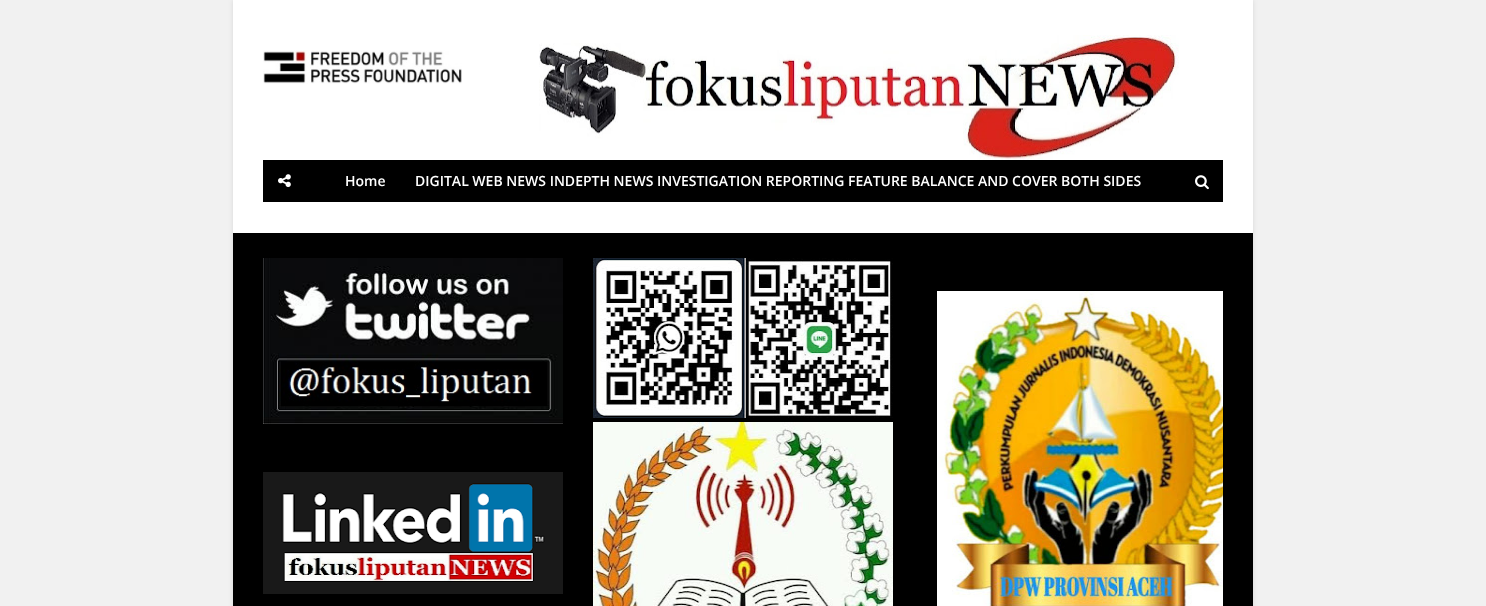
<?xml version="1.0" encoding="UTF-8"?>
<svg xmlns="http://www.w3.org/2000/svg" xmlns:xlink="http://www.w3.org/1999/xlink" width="1486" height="606">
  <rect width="100%" height="100%" fill="#f1f1f1" />
  <rect x="233" width="1020" height="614" fill="#000000" fill-opacity="0.1" filter="blur(2.5px)" />
  <rect x="233" width="1020" height="233" fill="#ffffff" />
  <image x="263" y="50" width="199" height="34" xlink:href="image1.png" />
  <image x="539" y="35" width="640" height="125" xlink:href="image2.png" />
  <rect x="263" y="160" width="960" height="42" fill="#000000" />
  <image x="278" y="174" width="13" height="14" xlink:href="image3.png" />
  <image x="1195" y="175" width="14" height="15" xlink:href="image4.png" />
  <rect x="233" y="233" width="1020" height="373" fill="#000000" />
  <image x="263" y="258" width="300" height="166" xlink:href="image5.png" />
  <image x="263" y="472" width="300" height="122" xlink:href="image6.png" />
  <image x="593" y="258" width="300" height="160" xlink:href="image7.png" />
  <image x="593" y="422" width="300" height="184" xlink:href="image8.png" />
  <image x="937" y="291" width="286" height="315" xlink:href="image9.png" />
  <text x="345" y="186" style="font-family: Open Sans; font-size: 14px; font-weight: 600; fill: #ffffff">Home</text>
  <text x="415" y="186" style="font-family: Open Sans; font-size: 14px; font-weight: 600; fill: #ffffff">DIGITAL WEB NEWS INDEPTH NEWS INVESTIGATION REPORTING FEATURE BALANCE AND COVER BOTH SIDES</text>
</svg>
